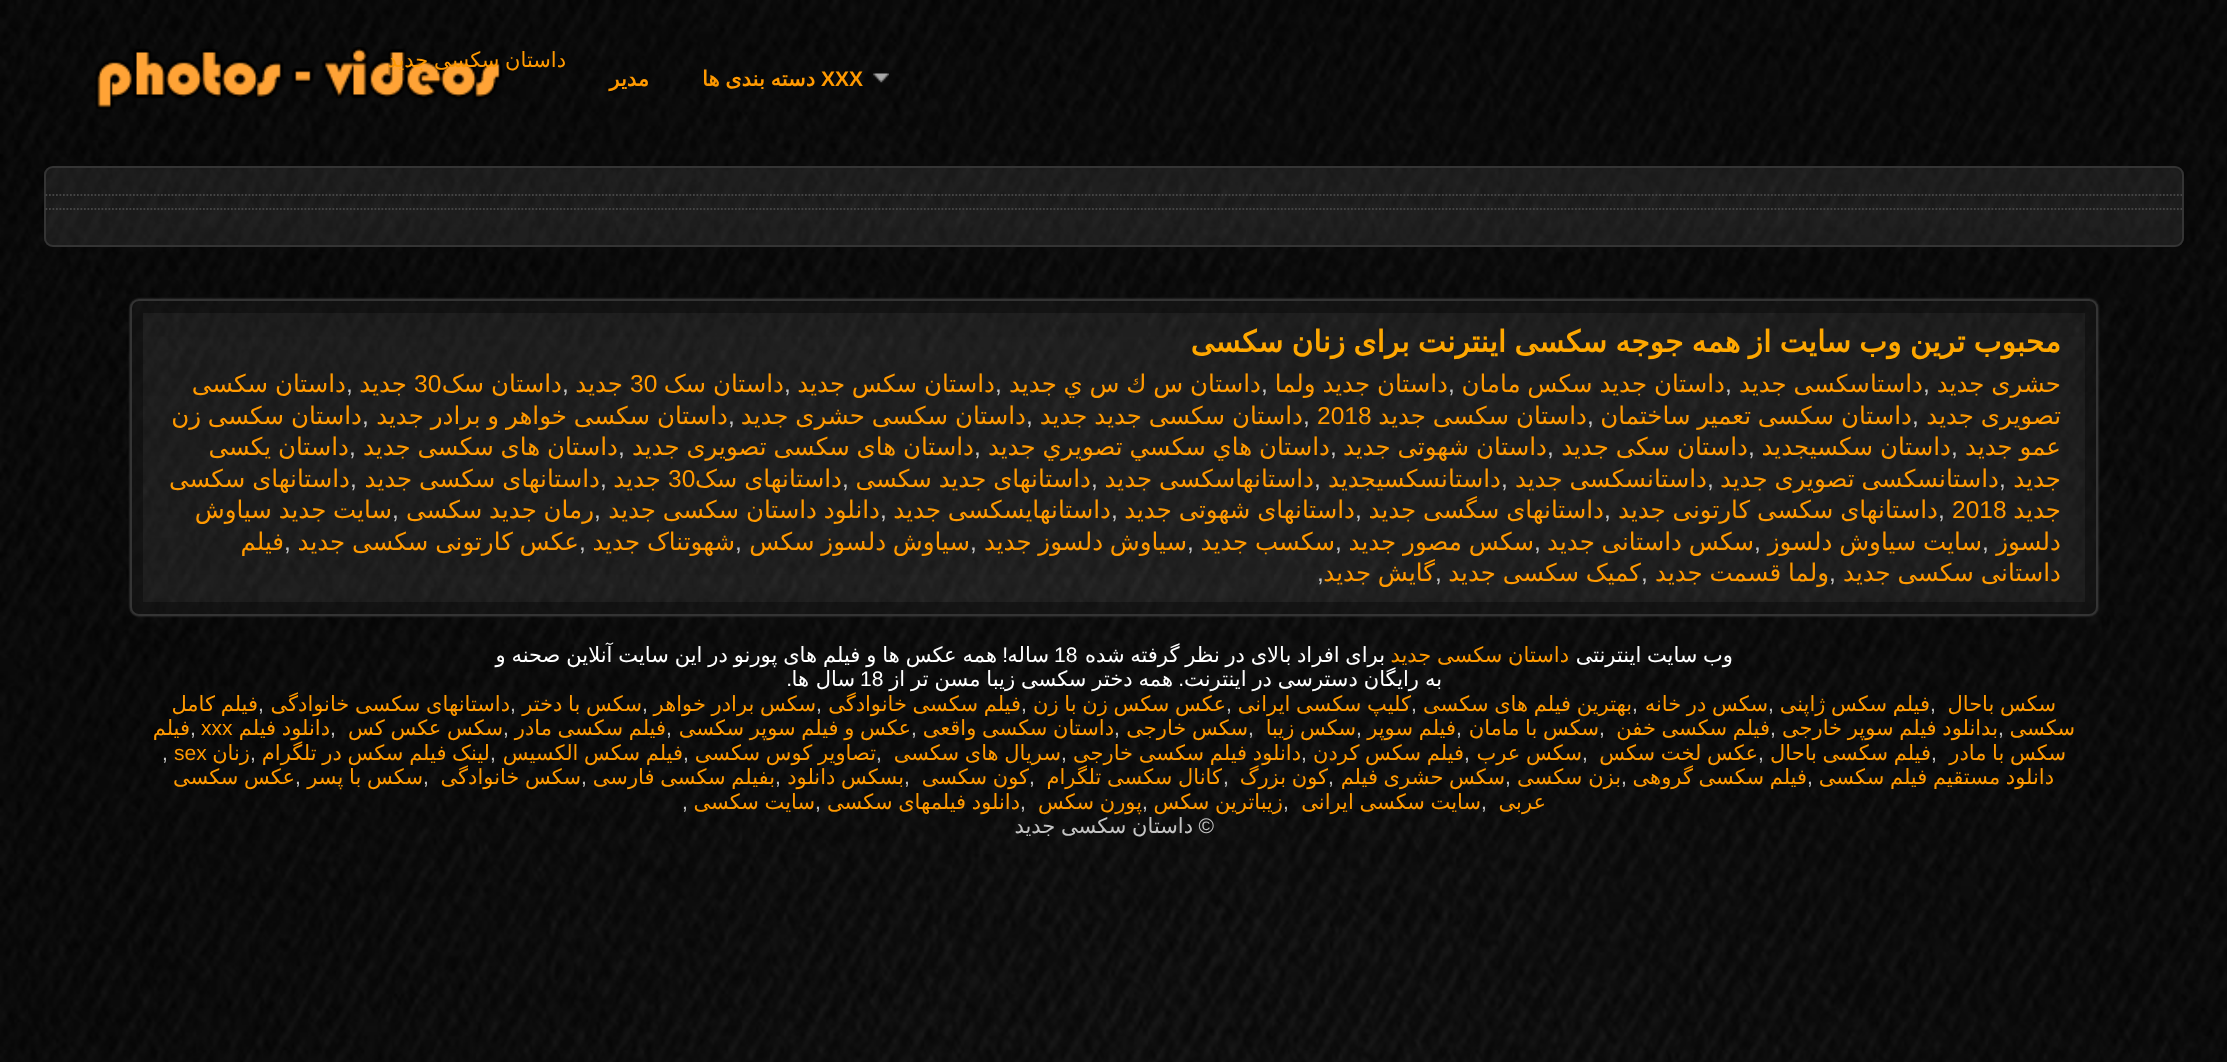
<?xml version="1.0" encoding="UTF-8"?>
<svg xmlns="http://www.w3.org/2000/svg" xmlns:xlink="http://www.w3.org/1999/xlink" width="2227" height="1062">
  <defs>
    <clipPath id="clip1"><path d="M 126 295 h 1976 v 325 h -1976 z m 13 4 h 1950 c 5 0 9 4 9 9 v 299 c 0 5 -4 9 -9 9 h -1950 c -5 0 -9 -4 -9 -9 v -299 c 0 -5 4 -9 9 -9 z" clip-rule="evenodd" /></clipPath>
  </defs>
  <rect width="100%" height="100%" fill="#ffffff" />
  <image x="0" y="0" width="2227" height="1062" xlink:href="image1.png" />
  <image x="95" y="47" width="408" height="63" xlink:href="image2.png" />
  <image x="873" y="73" width="16" height="10" xlink:href="image3.png" />
  <image x="44" y="166" width="2140" height="81" xlink:href="image4.png" />
  <rect x="45" y="167" width="2138" height="79" rx="8" fill="none" stroke="#343434" stroke-width="2" />
  <path d="M 45.5 195 h 2136.5" fill="none" stroke="#444444" stroke-width="1.8" stroke-dasharray="1.75 1.75" />
  <path d="M 45.5 209 h 2136.5" fill="none" stroke="#444444" stroke-width="1.8" stroke-dasharray="1.75 1.75" />
  <g clip-path="url(#clip1)">
    <rect x="130" y="299" width="1968" height="317" rx="9" fill="#444444" filter="blur(1px)" />
  </g>
  <image x="129" y="299" width="1969" height="317" xlink:href="image5.png" />
  <rect x="137" y="307" width="1954" height="301" rx="1" fill="none" stroke="#000000" stroke-opacity="0.35" stroke-width="12" />
  <rect x="131" y="300" width="1966" height="315" rx="8" fill="none" stroke="#343434" stroke-width="2" />
  <text x="566" y="67" word-spacing="-1" style="font-family: DejaVu Sans; font-size: 21px; direction: rtl; fill: #ff9900">داستان سکسی جدید</text>
  <text x="821" y="86" style="font-family: Liberation Sans; font-size: 21px; font-weight: bold; fill: #ff9900">XXX</text>
  <text x="815" y="86" word-spacing="-1" style="font-family: DejaVu Sans; font-size: 21px; font-weight: bold; direction: rtl; fill: #ff9900">دسته بندی ها</text>
  <text x="649" y="86" style="font-family: DejaVu Sans; font-size: 21px; font-weight: bold; direction: rtl; fill: #ff9900">مدير</text>
  <text x="2061" y="352" word-spacing="-1.25" style="font-family: DejaVu Sans; font-size: 29.75px; font-weight: bold; direction: rtl; fill: #fea700">محبوب ترین وب سایت از همه جوجه سکسی اینترنت برای زنان سکسی</text>
  <text x="2061" y="392" word-spacing="-1" style="font-family: DejaVu Sans; font-size: 24.5px; direction: rtl; fill: #ff9900">حشری جدید</text>
  <text x="1923" y="392" style="font-family: Liberation Sans; font-size: 24.5px; fill: #c4c4c4">,</text>
  <text x="1923" y="392" word-spacing="-1" style="font-family: DejaVu Sans; font-size: 24.5px; direction: rtl; fill: #ff9900">داستاسکسی جدید</text>
  <text x="1725" y="392" style="font-family: Liberation Sans; font-size: 24.5px; fill: #c4c4c4">,</text>
  <text x="1725" y="392" word-spacing="-1" style="font-family: DejaVu Sans; font-size: 24.5px; direction: rtl; fill: #ff9900">داستان جدید سکس مامان</text>
  <text x="1448" y="392" style="font-family: Liberation Sans; font-size: 24.5px; fill: #c4c4c4">,</text>
  <text x="1448" y="392" word-spacing="-1" style="font-family: DejaVu Sans; font-size: 24.5px; direction: rtl; fill: #ff9900">داستان جدید ولما</text>
  <text x="1261" y="392" style="font-family: Liberation Sans; font-size: 24.5px; fill: #c4c4c4">,</text>
  <text x="1261" y="392" word-spacing="-1" style="font-family: DejaVu Sans; font-size: 24.5px; direction: rtl; fill: #ff9900">داستان س ك س ي جديد</text>
  <text x="995" y="392" style="font-family: Liberation Sans; font-size: 24.5px; fill: #c4c4c4">,</text>
  <text x="995" y="392" word-spacing="-1" style="font-family: DejaVu Sans; font-size: 24.5px; direction: rtl; fill: #ff9900">داستان سكس جديد</text>
  <text x="784" y="392" style="font-family: Liberation Sans; font-size: 24.5px; fill: #c4c4c4">,</text>
  <text x="784" y="392" word-spacing="-1" style="font-family: DejaVu Sans; font-size: 24.5px; direction: rtl; fill: #ff9900">داستان سک</text>
  <text x="630" y="392" style="font-family: Liberation Sans; font-size: 24.5px; fill: #ff9900">30</text>
  <text x="623" y="392" style="font-family: DejaVu Sans; font-size: 24.5px; direction: rtl; fill: #ff9900">جدید</text>
  <text x="562" y="392" style="font-family: Liberation Sans; font-size: 24.5px; fill: #c4c4c4">,</text>
  <text x="562" y="392" word-spacing="-1" style="font-family: DejaVu Sans; font-size: 24.5px; direction: rtl; fill: #ff9900">داستان سک</text>
  <text x="414" y="392" style="font-family: Liberation Sans; font-size: 24.5px; fill: #ff9900">30</text>
  <text x="407" y="392" style="font-family: DejaVu Sans; font-size: 24.5px; direction: rtl; fill: #ff9900">جدید</text>
  <text x="346" y="392" style="font-family: Liberation Sans; font-size: 24.5px; fill: #c4c4c4">,</text>
  <text x="346" y="392" word-spacing="-1" style="font-family: DejaVu Sans; font-size: 24.5px; direction: rtl; fill: #ff9900">داستان سکسی</text>
  <text x="2061" y="424" word-spacing="-1" style="font-family: DejaVu Sans; font-size: 24.5px; direction: rtl; fill: #ff9900">تصویری جدید</text>
  <text x="1912" y="424" style="font-family: Liberation Sans; font-size: 24.5px; fill: #c4c4c4">,</text>
  <text x="1912" y="424" word-spacing="-1" style="font-family: DejaVu Sans; font-size: 24.5px; direction: rtl; fill: #ff9900">داستان سکسی تعمیر ساختمان</text>
  <text x="1587" y="424" style="font-family: Liberation Sans; font-size: 24.5px; fill: #c4c4c4">,</text>
  <text x="1587" y="424" word-spacing="-1" style="font-family: DejaVu Sans; font-size: 24.5px; direction: rtl; fill: #ff9900">داستان سکسی جدید</text>
  <text x="1317" y="424" style="font-family: Liberation Sans; font-size: 24.5px; fill: #ff9900">2018</text>
  <text x="1303" y="424" style="font-family: Liberation Sans; font-size: 24.5px; fill: #c4c4c4">,</text>
  <text x="1303" y="424" word-spacing="-1" style="font-family: DejaVu Sans; font-size: 24.5px; direction: rtl; fill: #ff9900">داستان سکسی جدید جدید</text>
  <text x="1026" y="424" style="font-family: Liberation Sans; font-size: 24.5px; fill: #c4c4c4">,</text>
  <text x="1026" y="424" word-spacing="-1" style="font-family: DejaVu Sans; font-size: 24.5px; direction: rtl; fill: #ff9900">داستان سکسی حشری جدید</text>
  <text x="728" y="424" style="font-family: Liberation Sans; font-size: 24.5px; fill: #c4c4c4">,</text>
  <text x="728" y="424" word-spacing="-1" style="font-family: DejaVu Sans; font-size: 24.5px; direction: rtl; fill: #ff9900">داستان سکسی خواهر و برادر جدید</text>
  <text x="362" y="424" style="font-family: Liberation Sans; font-size: 24.5px; fill: #c4c4c4">,</text>
  <text x="362" y="424" word-spacing="-1" style="font-family: DejaVu Sans; font-size: 24.5px; direction: rtl; fill: #ff9900">داستان سکسی زن</text>
  <text x="2061" y="455" word-spacing="-1" style="font-family: DejaVu Sans; font-size: 24.5px; direction: rtl; fill: #ff9900">عمو جدید</text>
  <text x="1951" y="455" style="font-family: Liberation Sans; font-size: 24.5px; fill: #c4c4c4">,</text>
  <text x="1951" y="455" word-spacing="-1" style="font-family: DejaVu Sans; font-size: 24.5px; direction: rtl; fill: #ff9900">داستان سکسیجدید</text>
  <text x="1748" y="455" style="font-family: Liberation Sans; font-size: 24.5px; fill: #c4c4c4">,</text>
  <text x="1748" y="455" word-spacing="-1" style="font-family: DejaVu Sans; font-size: 24.5px; direction: rtl; fill: #ff9900">داستان سکی جدید</text>
  <text x="1547" y="455" style="font-family: Liberation Sans; font-size: 24.5px; fill: #c4c4c4">,</text>
  <text x="1547" y="455" word-spacing="-1" style="font-family: DejaVu Sans; font-size: 24.5px; direction: rtl; fill: #ff9900">داستان شهوتی جدید</text>
  <text x="1330" y="455" style="font-family: Liberation Sans; font-size: 24.5px; fill: #c4c4c4">,</text>
  <text x="1330" y="455" word-spacing="-1" style="font-family: DejaVu Sans; font-size: 24.5px; direction: rtl; fill: #ff9900">داستان هاي سكسي تصويري جديد</text>
  <text x="974" y="455" style="font-family: Liberation Sans; font-size: 24.5px; fill: #c4c4c4">,</text>
  <text x="974" y="455" word-spacing="-1" style="font-family: DejaVu Sans; font-size: 24.5px; direction: rtl; fill: #ff9900">داستان های سکسی تصویری جدید</text>
  <text x="618" y="455" style="font-family: Liberation Sans; font-size: 24.5px; fill: #c4c4c4">,</text>
  <text x="618" y="455" word-spacing="-1" style="font-family: DejaVu Sans; font-size: 24.5px; direction: rtl; fill: #ff9900">داستان های سکسی جدید</text>
  <text x="349" y="455" style="font-family: Liberation Sans; font-size: 24.5px; fill: #c4c4c4">,</text>
  <text x="349" y="455" word-spacing="-1" style="font-family: DejaVu Sans; font-size: 24.5px; direction: rtl; fill: #ff9900">داستان یکسی</text>
  <text x="2061" y="487" style="font-family: DejaVu Sans; font-size: 24.5px; direction: rtl; fill: #ff9900">جدید</text>
  <text x="1999" y="487" style="font-family: Liberation Sans; font-size: 24.5px; fill: #c4c4c4">,</text>
  <text x="1999" y="487" word-spacing="-1" style="font-family: DejaVu Sans; font-size: 24.5px; direction: rtl; fill: #ff9900">داستانسکسی تصویری جدید</text>
  <text x="1707" y="487" style="font-family: Liberation Sans; font-size: 24.5px; fill: #c4c4c4">,</text>
  <text x="1707" y="487" word-spacing="-1" style="font-family: DejaVu Sans; font-size: 24.5px; direction: rtl; fill: #ff9900">داستانسکسی جدید</text>
  <text x="1501" y="487" style="font-family: Liberation Sans; font-size: 24.5px; fill: #c4c4c4">,</text>
  <text x="1501" y="487" style="font-family: DejaVu Sans; font-size: 24.5px; direction: rtl; fill: #ff9900">داستانسکسیجدید</text>
  <text x="1314" y="487" style="font-family: Liberation Sans; font-size: 24.5px; fill: #c4c4c4">,</text>
  <text x="1314" y="487" word-spacing="-1" style="font-family: DejaVu Sans; font-size: 24.5px; direction: rtl; fill: #ff9900">داستانهاسکسی جدید</text>
  <text x="1091" y="487" style="font-family: Liberation Sans; font-size: 24.5px; fill: #c4c4c4">,</text>
  <text x="1091" y="487" word-spacing="-1" style="font-family: DejaVu Sans; font-size: 24.5px; direction: rtl; fill: #ff9900">داستانهای جدید سکسی</text>
  <text x="842" y="487" style="font-family: Liberation Sans; font-size: 24.5px; fill: #c4c4c4">,</text>
  <text x="842" y="487" word-spacing="-1" style="font-family: DejaVu Sans; font-size: 24.5px; direction: rtl; fill: #ff9900">داستانهای سک</text>
  <text x="668" y="487" style="font-family: Liberation Sans; font-size: 24.5px; fill: #ff9900">30</text>
  <text x="661" y="487" style="font-family: DejaVu Sans; font-size: 24.5px; direction: rtl; fill: #ff9900">جدید</text>
  <text x="600" y="487" style="font-family: Liberation Sans; font-size: 24.5px; fill: #c4c4c4">,</text>
  <text x="600" y="487" word-spacing="-1" style="font-family: DejaVu Sans; font-size: 24.5px; direction: rtl; fill: #ff9900">داستانهای سکسی جدید</text>
  <text x="350" y="487" style="font-family: Liberation Sans; font-size: 24.5px; fill: #c4c4c4">,</text>
  <text x="350" y="487" word-spacing="-1" style="font-family: DejaVu Sans; font-size: 24.5px; direction: rtl; fill: #ff9900">داستانهای سکسی</text>
  <text x="2061" y="518" style="font-family: DejaVu Sans; font-size: 24.5px; direction: rtl; fill: #ff9900">جدید</text>
  <text x="1952" y="518" style="font-family: Liberation Sans; font-size: 24.5px; fill: #ff9900">2018</text>
  <text x="1938" y="518" style="font-family: Liberation Sans; font-size: 24.5px; fill: #c4c4c4">,</text>
  <text x="1938" y="518" word-spacing="-1" style="font-family: DejaVu Sans; font-size: 24.5px; direction: rtl; fill: #ff9900">داستانهای سکسی کارتونی جدید</text>
  <text x="1604" y="518" style="font-family: Liberation Sans; font-size: 24.5px; fill: #c4c4c4">,</text>
  <text x="1604" y="518" word-spacing="-1" style="font-family: DejaVu Sans; font-size: 24.5px; direction: rtl; fill: #ff9900">داستانهای سگسی جدید</text>
  <text x="1355" y="518" style="font-family: Liberation Sans; font-size: 24.5px; fill: #c4c4c4">,</text>
  <text x="1355" y="518" word-spacing="-1" style="font-family: DejaVu Sans; font-size: 24.5px; direction: rtl; fill: #ff9900">داستانهای شهوتی جدید</text>
  <text x="1111" y="518" style="font-family: Liberation Sans; font-size: 24.5px; fill: #c4c4c4">,</text>
  <text x="1111" y="518" word-spacing="-1" style="font-family: DejaVu Sans; font-size: 24.5px; direction: rtl; fill: #ff9900">داستانهایسکسی جدید</text>
  <text x="880" y="518" style="font-family: Liberation Sans; font-size: 24.5px; fill: #c4c4c4">,</text>
  <text x="880" y="518" word-spacing="-1" style="font-family: DejaVu Sans; font-size: 24.5px; direction: rtl; fill: #ff9900">دانلود داستان سکسی جدید</text>
  <text x="594" y="518" style="font-family: Liberation Sans; font-size: 24.5px; fill: #c4c4c4">,</text>
  <text x="594" y="518" word-spacing="-1" style="font-family: DejaVu Sans; font-size: 24.5px; direction: rtl; fill: #ff9900">رمان جدید سکسی</text>
  <text x="392" y="518" style="font-family: Liberation Sans; font-size: 24.5px; fill: #c4c4c4">,</text>
  <text x="392" y="518" word-spacing="-1" style="font-family: DejaVu Sans; font-size: 24.5px; direction: rtl; fill: #ff9900">سایت جدید سیاوش</text>
  <text x="2061" y="550" style="font-family: DejaVu Sans; font-size: 24.5px; direction: rtl; fill: #ff9900">دلسوز</text>
  <text x="1982" y="550" style="font-family: Liberation Sans; font-size: 24.5px; fill: #c4c4c4">,</text>
  <text x="1982" y="550" word-spacing="-1" style="font-family: DejaVu Sans; font-size: 24.5px; direction: rtl; fill: #ff9900">سایت سیاوش دلسوز</text>
  <text x="1754" y="550" style="font-family: Liberation Sans; font-size: 24.5px; fill: #c4c4c4">,</text>
  <text x="1754" y="550" word-spacing="-1" style="font-family: DejaVu Sans; font-size: 24.5px; direction: rtl; fill: #ff9900">سکس داستانی جدید</text>
  <text x="1534" y="550" style="font-family: Liberation Sans; font-size: 24.5px; fill: #c4c4c4">,</text>
  <text x="1534" y="550" word-spacing="-1" style="font-family: DejaVu Sans; font-size: 24.5px; direction: rtl; fill: #ff9900">سکس مصور جدید</text>
  <text x="1335" y="550" style="font-family: Liberation Sans; font-size: 24.5px; fill: #c4c4c4">,</text>
  <text x="1335" y="550" word-spacing="-1" style="font-family: DejaVu Sans; font-size: 24.5px; direction: rtl; fill: #ff9900">سکسب جدید</text>
  <text x="1187" y="550" style="font-family: Liberation Sans; font-size: 24.5px; fill: #c4c4c4">,</text>
  <text x="1187" y="550" word-spacing="-1" style="font-family: DejaVu Sans; font-size: 24.5px; direction: rtl; fill: #ff9900">سیاوش دلسوز جدید</text>
  <text x="970" y="550" style="font-family: Liberation Sans; font-size: 24.5px; fill: #c4c4c4">,</text>
  <text x="970" y="550" word-spacing="-1" style="font-family: DejaVu Sans; font-size: 24.5px; direction: rtl; fill: #ff9900">سیاوش دلسوز سکس</text>
  <text x="735" y="550" style="font-family: Liberation Sans; font-size: 24.5px; fill: #c4c4c4">,</text>
  <text x="735" y="550" word-spacing="-1" style="font-family: DejaVu Sans; font-size: 24.5px; direction: rtl; fill: #ff9900">شهوتناک جدید</text>
  <text x="579" y="550" style="font-family: Liberation Sans; font-size: 24.5px; fill: #c4c4c4">,</text>
  <text x="579" y="550" word-spacing="-1" style="font-family: DejaVu Sans; font-size: 24.5px; direction: rtl; fill: #ff9900">عکس کارتونی سکسی جدید</text>
  <text x="284" y="550" style="font-family: Liberation Sans; font-size: 24.5px; fill: #c4c4c4">,</text>
  <text x="284" y="550" style="font-family: DejaVu Sans; font-size: 24.5px; direction: rtl; fill: #ff9900">فیلم</text>
  <text x="2061" y="581" word-spacing="-1" style="font-family: DejaVu Sans; font-size: 24.5px; direction: rtl; fill: #ff9900">داستانی سکسی جدید</text>
  <text x="1829" y="581" style="font-family: Liberation Sans; font-size: 24.5px; fill: #c4c4c4">,</text>
  <text x="1829" y="581" word-spacing="-1" style="font-family: DejaVu Sans; font-size: 24.5px; direction: rtl; fill: #ff9900">ولما قسمت جدید</text>
  <text x="1641" y="581" style="font-family: Liberation Sans; font-size: 24.5px; fill: #c4c4c4">,</text>
  <text x="1641" y="581" word-spacing="-1" style="font-family: DejaVu Sans; font-size: 24.5px; direction: rtl; fill: #ff9900">کمیک سکسی جدید</text>
  <text x="1435" y="581" style="font-family: Liberation Sans; font-size: 24.5px; fill: #c4c4c4">,</text>
  <text x="1435" y="581" word-spacing="-1" style="font-family: DejaVu Sans; font-size: 24.5px; direction: rtl; fill: #ff9900">گایش جدید</text>
  <text x="1317" y="581" style="font-family: Liberation Sans; font-size: 24.5px; fill: #c4c4c4">,</text>
  <text x="1733" y="662" word-spacing="-1" style="font-family: DejaVu Sans; font-size: 21px; direction: rtl; fill: #ffffff">وب سایت اینترنتی</text>
  <text x="1569" y="662" word-spacing="-1" style="font-family: DejaVu Sans; font-size: 21px; direction: rtl; fill: #ff9900">داستان سکسی جدید</text>
  <text x="1385" y="662" word-spacing="-1" style="font-family: DejaVu Sans; font-size: 21px; direction: rtl; fill: #ffffff">برای افراد بالای در نظر گرفته شده</text>
  <text x="1054" y="662" style="font-family: Liberation Sans; font-size: 21px; fill: #ffffff">18</text>
  <text x="1049" y="662" style="font-family: DejaVu Sans; font-size: 21px; direction: rtl; fill: #ffffff">ساله</text>
  <text x="1008" y="662" style="font-family: Liberation Sans; font-size: 21px; direction: rtl; fill: #ffffff">!</text>
  <text x="997" y="662" word-spacing="-0.75" style="font-family: DejaVu Sans; font-size: 21px; direction: rtl; fill: #ffffff">همه عکس ها و فیلم های پورنو در این سایت آنلاین صحنه و</text>
  <text x="1442" y="686" word-spacing="-0.75" style="font-family: DejaVu Sans; font-size: 21px; direction: rtl; fill: #ffffff">به رایگان دسترسی در اینترنت</text>
  <text x="1184" y="686" style="font-family: Liberation Sans; font-size: 21px; direction: rtl; fill: #ffffff">.</text>
  <text x="1173" y="686" word-spacing="-0.75" style="font-family: DejaVu Sans; font-size: 21px; direction: rtl; fill: #ffffff">همه دختر سکسی زیبا مسن تر از</text>
  <text x="860" y="686" style="font-family: Liberation Sans; font-size: 21px; fill: #ffffff">18</text>
  <text x="855" y="686" style="font-family: DejaVu Sans; font-size: 21px; direction: rtl; fill: #ffffff">سال ها</text>
  <text x="792" y="686" style="font-family: Liberation Sans; font-size: 21px; direction: rtl; fill: #ffffff">.</text>
  <text x="2056" y="711" word-spacing="-1" style="font-family: DejaVu Sans; font-size: 21px; direction: rtl; fill: #ff9900">سکس باحال</text>
  <text x="1930" y="711" style="font-family: Liberation Sans; font-size: 21px; fill: #c4c4c4">,</text>
  <text x="1930" y="711" word-spacing="-1" style="font-family: DejaVu Sans; font-size: 21px; direction: rtl; fill: #ff9900">فیلم سکس ژاپنی</text>
  <text x="1768" y="711" style="font-family: Liberation Sans; font-size: 21px; fill: #c4c4c4">,</text>
  <text x="1768" y="711" word-spacing="-1" style="font-family: DejaVu Sans; font-size: 21px; direction: rtl; fill: #ff9900">سکس در خانه</text>
  <text x="1632" y="711" style="font-family: Liberation Sans; font-size: 21px; fill: #c4c4c4">,</text>
  <text x="1632" y="711" word-spacing="-1" style="font-family: DejaVu Sans; font-size: 21px; direction: rtl; fill: #ff9900">بهترین فیلم های سکسی</text>
  <text x="1411" y="711" style="font-family: Liberation Sans; font-size: 21px; fill: #c4c4c4">,</text>
  <text x="1411" y="711" word-spacing="-1" style="font-family: DejaVu Sans; font-size: 21px; direction: rtl; fill: #ff9900">کلیپ سکسی ایرانی</text>
  <text x="1226" y="711" style="font-family: Liberation Sans; font-size: 21px; fill: #c4c4c4">,</text>
  <text x="1226" y="711" word-spacing="-1" style="font-family: DejaVu Sans; font-size: 21px; direction: rtl; fill: #ff9900">عکس سکس زن با زن</text>
  <text x="1021" y="711" style="font-family: Liberation Sans; font-size: 21px; fill: #c4c4c4">,</text>
  <text x="1021" y="711" word-spacing="-1" style="font-family: DejaVu Sans; font-size: 21px; direction: rtl; fill: #ff9900">فیلم سکسی خانوادگی</text>
  <text x="816" y="711" style="font-family: Liberation Sans; font-size: 21px; fill: #c4c4c4">,</text>
  <text x="816" y="711" word-spacing="-1" style="font-family: DejaVu Sans; font-size: 21px; direction: rtl; fill: #ff9900">سکس برادر خواهر</text>
  <text x="642" y="711" style="font-family: Liberation Sans; font-size: 21px; fill: #c4c4c4">,</text>
  <text x="642" y="711" word-spacing="-1" style="font-family: DejaVu Sans; font-size: 21px; direction: rtl; fill: #ff9900">سکس با دختر</text>
  <text x="510" y="711" style="font-family: Liberation Sans; font-size: 21px; fill: #c4c4c4">,</text>
  <text x="510" y="711" word-spacing="-1" style="font-family: DejaVu Sans; font-size: 21px; direction: rtl; fill: #ff9900">داستانهای سکسی خانوادگی</text>
  <text x="258" y="711" style="font-family: Liberation Sans; font-size: 21px; fill: #c4c4c4">,</text>
  <text x="258" y="711" word-spacing="-1" style="font-family: DejaVu Sans; font-size: 21px; direction: rtl; fill: #ff9900">فیلم کامل</text>
  <text x="2075" y="735" style="font-family: DejaVu Sans; font-size: 21px; direction: rtl; fill: #ff9900">سکسی</text>
  <text x="1998" y="735" style="font-family: Liberation Sans; font-size: 21px; fill: #c4c4c4">,</text>
  <text x="1998" y="735" word-spacing="-1" style="font-family: DejaVu Sans; font-size: 21px; direction: rtl; fill: #ff9900">بدانلود فیلم سوپر خارجی</text>
  <text x="1770" y="735" style="font-family: Liberation Sans; font-size: 21px; fill: #c4c4c4">,</text>
  <text x="1770" y="735" word-spacing="-1" style="font-family: DejaVu Sans; font-size: 21px; direction: rtl; fill: #ff9900">فیلم سکسی خفن</text>
  <text x="1599" y="735" style="font-family: Liberation Sans; font-size: 21px; fill: #c4c4c4">,</text>
  <text x="1599" y="735" word-spacing="-1" style="font-family: DejaVu Sans; font-size: 21px; direction: rtl; fill: #ff9900">سکس با مامان</text>
  <text x="1456" y="735" style="font-family: Liberation Sans; font-size: 21px; fill: #c4c4c4">,</text>
  <text x="1456" y="735" word-spacing="-1" style="font-family: DejaVu Sans; font-size: 21px; direction: rtl; fill: #ff9900">فیلم سوپر</text>
  <text x="1356" y="735" style="font-family: Liberation Sans; font-size: 21px; fill: #c4c4c4">,</text>
  <text x="1356" y="735" word-spacing="-1" style="font-family: DejaVu Sans; font-size: 21px; direction: rtl; fill: #ff9900">سکس زیبا</text>
  <text x="1248" y="735" style="font-family: Liberation Sans; font-size: 21px; fill: #c4c4c4">,</text>
  <text x="1248" y="735" word-spacing="-1" style="font-family: DejaVu Sans; font-size: 21px; direction: rtl; fill: #ff9900">سکس خارجی</text>
  <text x="1114" y="735" style="font-family: Liberation Sans; font-size: 21px; fill: #c4c4c4">,</text>
  <text x="1114" y="735" word-spacing="-1" style="font-family: DejaVu Sans; font-size: 21px; direction: rtl; fill: #ff9900">داستان سکسی واقعی</text>
  <text x="911" y="735" style="font-family: Liberation Sans; font-size: 21px; fill: #c4c4c4">,</text>
  <text x="911" y="735" word-spacing="-1" style="font-family: DejaVu Sans; font-size: 21px; direction: rtl; fill: #ff9900">عکس و فیلم سوپر سکسی</text>
  <text x="666" y="735" style="font-family: Liberation Sans; font-size: 21px; fill: #c4c4c4">,</text>
  <text x="666" y="735" word-spacing="-1" style="font-family: DejaVu Sans; font-size: 21px; direction: rtl; fill: #ff9900">فیلم سکسی مادر</text>
  <text x="503" y="735" style="font-family: Liberation Sans; font-size: 21px; fill: #c4c4c4">,</text>
  <text x="503" y="735" word-spacing="-1" style="font-family: DejaVu Sans; font-size: 21px; direction: rtl; fill: #ff9900">سکس عکس کس</text>
  <text x="330" y="735" style="font-family: Liberation Sans; font-size: 21px; fill: #c4c4c4">,</text>
  <text x="330" y="735" word-spacing="-1" style="font-family: DejaVu Sans; font-size: 21px; direction: rtl; fill: #ff9900">دانلود فیلم</text>
  <text x="201" y="735" style="font-family: Liberation Sans; font-size: 21px; fill: #ff9900">xxx</text>
  <text x="190" y="735" style="font-family: Liberation Sans; font-size: 21px; fill: #c4c4c4">,</text>
  <text x="190" y="735" style="font-family: DejaVu Sans; font-size: 21px; direction: rtl; fill: #ff9900">فیلم</text>
  <text x="2066" y="760" word-spacing="-1" style="font-family: DejaVu Sans; font-size: 21px; direction: rtl; fill: #ff9900">سکس با مادر</text>
  <text x="1931" y="760" style="font-family: Liberation Sans; font-size: 21px; fill: #c4c4c4">,</text>
  <text x="1931" y="760" word-spacing="-1" style="font-family: DejaVu Sans; font-size: 21px; direction: rtl; fill: #ff9900">فیلم سکسی باحال</text>
  <text x="1758" y="760" style="font-family: Liberation Sans; font-size: 21px; fill: #c4c4c4">,</text>
  <text x="1758" y="760" word-spacing="-1" style="font-family: DejaVu Sans; font-size: 21px; direction: rtl; fill: #ff9900">عکس لخت سکس</text>
  <text x="1582" y="760" style="font-family: Liberation Sans; font-size: 21px; fill: #c4c4c4">,</text>
  <text x="1582" y="760" word-spacing="-1" style="font-family: DejaVu Sans; font-size: 21px; direction: rtl; fill: #ff9900">سکس عرب</text>
  <text x="1464" y="760" style="font-family: Liberation Sans; font-size: 21px; fill: #c4c4c4">,</text>
  <text x="1464" y="760" word-spacing="-1" style="font-family: DejaVu Sans; font-size: 21px; direction: rtl; fill: #ff9900">فیلم سکس کردن</text>
  <text x="1301" y="760" style="font-family: Liberation Sans; font-size: 21px; fill: #c4c4c4">,</text>
  <text x="1301" y="760" word-spacing="-1" style="font-family: DejaVu Sans; font-size: 21px; direction: rtl; fill: #ff9900">دانلود فیلم سکسی خارجی</text>
  <text x="1061" y="760" style="font-family: Liberation Sans; font-size: 21px; fill: #c4c4c4">,</text>
  <text x="1061" y="760" word-spacing="-1" style="font-family: DejaVu Sans; font-size: 21px; direction: rtl; fill: #ff9900">سریال های سکسی</text>
  <text x="876" y="760" style="font-family: Liberation Sans; font-size: 21px; fill: #c4c4c4">,</text>
  <text x="876" y="760" word-spacing="-1" style="font-family: DejaVu Sans; font-size: 21px; direction: rtl; fill: #ff9900">تصاویر کوس سکسی</text>
  <text x="683" y="760" style="font-family: Liberation Sans; font-size: 21px; fill: #c4c4c4">,</text>
  <text x="683" y="760" word-spacing="-1" style="font-family: DejaVu Sans; font-size: 21px; direction: rtl; fill: #ff9900">فیلم سکس الکسیس</text>
  <text x="490" y="760" style="font-family: Liberation Sans; font-size: 21px; fill: #c4c4c4">,</text>
  <text x="490" y="760" word-spacing="-1" style="font-family: DejaVu Sans; font-size: 21px; direction: rtl; fill: #ff9900">لینک فیلم سکس در تلگرام</text>
  <text x="250" y="760" style="font-family: Liberation Sans; font-size: 21px; fill: #c4c4c4">,</text>
  <text x="250" y="760" style="font-family: DejaVu Sans; font-size: 21px; direction: rtl; fill: #ff9900">زنان</text>
  <text x="174" y="760" style="font-family: Liberation Sans; font-size: 21px; fill: #ff9900">sex</text>
  <text x="162" y="760" style="font-family: Liberation Sans; font-size: 21px; fill: #c4c4c4">,</text>
  <text x="2054" y="784" word-spacing="-1" style="font-family: DejaVu Sans; font-size: 21px; direction: rtl; fill: #ff9900">دانلود مستقیم فیلم سکسی</text>
  <text x="1807" y="784" style="font-family: Liberation Sans; font-size: 21px; fill: #c4c4c4">,</text>
  <text x="1807" y="784" word-spacing="-1" style="font-family: DejaVu Sans; font-size: 21px; direction: rtl; fill: #ff9900">فیلم سکسی گروهی</text>
  <text x="1621" y="784" style="font-family: Liberation Sans; font-size: 21px; fill: #c4c4c4">,</text>
  <text x="1621" y="784" word-spacing="-1" style="font-family: DejaVu Sans; font-size: 21px; direction: rtl; fill: #ff9900">بزن سکسی</text>
  <text x="1505" y="784" style="font-family: Liberation Sans; font-size: 21px; fill: #c4c4c4">,</text>
  <text x="1505" y="784" word-spacing="-1" style="font-family: DejaVu Sans; font-size: 21px; direction: rtl; fill: #ff9900">سکس حشری فیلم</text>
  <text x="1328" y="784" style="font-family: Liberation Sans; font-size: 21px; fill: #c4c4c4">,</text>
  <text x="1328" y="784" word-spacing="-1" style="font-family: DejaVu Sans; font-size: 21px; direction: rtl; fill: #ff9900">کون بزرگ</text>
  <text x="1223" y="784" style="font-family: Liberation Sans; font-size: 21px; fill: #c4c4c4">,</text>
  <text x="1222" y="784" word-spacing="-1" style="font-family: DejaVu Sans; font-size: 21px; direction: rtl; fill: #ff9900">کانال سکسی تلگرام</text>
  <text x="1029" y="784" style="font-family: Liberation Sans; font-size: 21px; fill: #c4c4c4">,</text>
  <text x="1029" y="784" word-spacing="-1" style="font-family: DejaVu Sans; font-size: 21px; direction: rtl; fill: #ff9900">کون سکسی</text>
  <text x="904" y="784" style="font-family: Liberation Sans; font-size: 21px; fill: #c4c4c4">,</text>
  <text x="904" y="784" word-spacing="-1" style="font-family: DejaVu Sans; font-size: 21px; direction: rtl; fill: #ff9900">بسکس دانلود</text>
  <text x="775" y="784" style="font-family: Liberation Sans; font-size: 21px; fill: #c4c4c4">,</text>
  <text x="775" y="784" word-spacing="-1" style="font-family: DejaVu Sans; font-size: 21px; direction: rtl; fill: #ff9900">بفیلم سکسی فارسی</text>
  <text x="581" y="784" style="font-family: Liberation Sans; font-size: 21px; fill: #c4c4c4">,</text>
  <text x="581" y="784" word-spacing="-1" style="font-family: DejaVu Sans; font-size: 21px; direction: rtl; fill: #ff9900">سکس خانوادگی</text>
  <text x="423" y="784" style="font-family: Liberation Sans; font-size: 21px; fill: #c4c4c4">,</text>
  <text x="423" y="784" word-spacing="-1" style="font-family: DejaVu Sans; font-size: 21px; direction: rtl; fill: #ff9900">سکس با پسر</text>
  <text x="295" y="784" style="font-family: Liberation Sans; font-size: 21px; fill: #c4c4c4">,</text>
  <text x="295" y="784" word-spacing="-1" style="font-family: DejaVu Sans; font-size: 21px; direction: rtl; fill: #ff9900">عکس سکسی</text>
  <text x="1546" y="809" style="font-family: DejaVu Sans; font-size: 21px; direction: rtl; fill: #ff9900">عربی</text>
  <text x="1481" y="809" style="font-family: Liberation Sans; font-size: 21px; fill: #c4c4c4">,</text>
  <text x="1481" y="809" word-spacing="-1" style="font-family: DejaVu Sans; font-size: 21px; direction: rtl; fill: #ff9900">سایت سکسی ایرانی</text>
  <text x="1283" y="809" style="font-family: Liberation Sans; font-size: 21px; fill: #c4c4c4">,</text>
  <text x="1283" y="809" word-spacing="-1" style="font-family: DejaVu Sans; font-size: 21px; direction: rtl; fill: #ff9900">زیباترین سکس</text>
  <text x="1142" y="809" style="font-family: Liberation Sans; font-size: 21px; fill: #c4c4c4">,</text>
  <text x="1142" y="809" word-spacing="-1" style="font-family: DejaVu Sans; font-size: 21px; direction: rtl; fill: #ff9900">پورن سکس</text>
  <text x="1020" y="809" style="font-family: Liberation Sans; font-size: 21px; fill: #c4c4c4">,</text>
  <text x="1020" y="809" word-spacing="-1" style="font-family: DejaVu Sans; font-size: 21px; direction: rtl; fill: #ff9900">دانلود فیلمهای سکسی</text>
  <text x="815" y="809" style="font-family: Liberation Sans; font-size: 21px; fill: #c4c4c4">,</text>
  <text x="815" y="809" word-spacing="-1" style="font-family: DejaVu Sans; font-size: 21px; direction: rtl; fill: #ff9900">سایت سکسی</text>
  <text x="682" y="809" style="font-family: Liberation Sans; font-size: 21px; fill: #c4c4c4">,</text>
  <text x="1214" y="833" style="font-family: Liberation Sans; font-size: 21px; direction: rtl; fill: #c4c4c4">©</text>
  <text x="1193" y="833" word-spacing="-1" style="font-family: DejaVu Sans; font-size: 21px; direction: rtl; fill: #c4c4c4">داستان سکسی جدید</text>
</svg>
